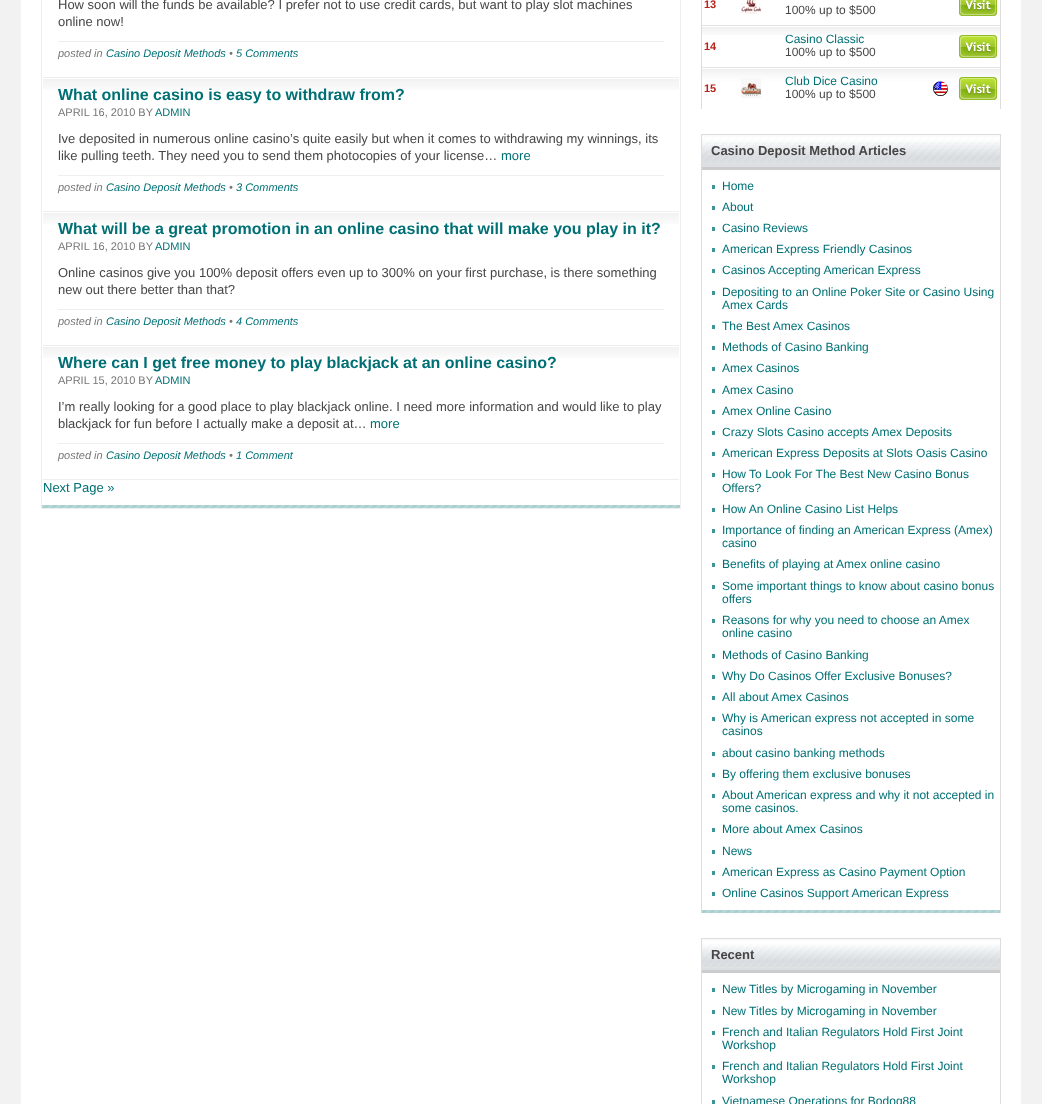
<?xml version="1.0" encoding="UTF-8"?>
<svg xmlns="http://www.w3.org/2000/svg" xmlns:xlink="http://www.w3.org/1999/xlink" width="1042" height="1104">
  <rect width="100%" height="100%" fill="#f2f2f2" />
  <rect x="21" width="1000" height="1104" fill="#ffffff" />
  <image x="42" y="505" width="638" height="3" xlink:href="image1.png" />
  <rect x="41.5" y="-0.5" width="639" height="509" fill="none" stroke="#eeeeee" />
  <rect x="43" y="77" width="636" height="1" fill="#eeeeee" />
  <rect x="58" y="41" width="606" height="1" fill="#eeeeee" />
  <image x="43" y="79" width="636" height="11" xlink:href="image2.png" />
  <rect x="43" y="211" width="636" height="1" fill="#eeeeee" />
  <rect x="58" y="175" width="606" height="1" fill="#eeeeee" />
  <image x="43" y="213" width="636" height="11" xlink:href="image2.png" />
  <rect x="43" y="345" width="636" height="1" fill="#eeeeee" />
  <rect x="58" y="309" width="606" height="1" fill="#eeeeee" />
  <image x="43" y="347" width="636" height="11" xlink:href="image2.png" />
  <rect x="43" y="479" width="636" height="1" fill="#eeeeee" />
  <rect x="58" y="443" width="606" height="1" fill="#eeeeee" />
  <rect x="1000" width="1" height="109" fill="#dddddd" />
  <rect x="701" width="1" height="109" fill="#dddddd" />
  <image x="741" y="0" width="20" height="14" xlink:href="image3.png" />
  <image x="959" y="0" width="38" height="16" xlink:href="image4.png" />
  <image x="702" y="25" width="16" height="10" xlink:href="image5.png" />
  <image x="718" y="25" width="65" height="10" xlink:href="image6.png" />
  <image x="783" y="25" width="143" height="10" xlink:href="image7.png" />
  <image x="926" y="25" width="29" height="10" xlink:href="image8.png" />
  <image x="955" y="25" width="45" height="10" xlink:href="image9.png" />
  <image x="959" y="35" width="38" height="23" xlink:href="image10.png" />
  <image x="702" y="67" width="16" height="42" xlink:href="image11.png" />
  <image x="718" y="67" width="65" height="42" xlink:href="image12.png" />
  <image x="741" y="78" width="20" height="20" xlink:href="image13.png" />
  <image x="783" y="67" width="143" height="42" xlink:href="image14.png" />
  <image x="926" y="67" width="29" height="42" xlink:href="image15.png" />
  <image x="933" y="81" width="15" height="15" xlink:href="image16.png" />
  <image x="955" y="67" width="45" height="42" xlink:href="image17.png" />
  <image x="959" y="77" width="38" height="23" xlink:href="image10.png" />
  <image x="702" y="910" width="298" height="3" xlink:href="image18.png" />
  <rect x="701" y="134" width="300" height="1" fill="#dddddd" />
  <rect x="1000" y="134" width="1" height="779" fill="#dddddd" />
  <rect x="701" y="134" width="1" height="779" fill="#dddddd" />
  <rect x="702" y="164" width="298" height="3" fill="#dce0e3" />
  <image x="702" y="135" width="298" height="29" xlink:href="image19.png" />
  <rect x="702" y="167" width="298" height="3" fill="#cccccc" />
  <rect x="712" y="185" width="3" height="4" fill="#409497" />
  <rect x="712" y="206" width="3" height="4" fill="#409497" />
  <rect x="712" y="227" width="3" height="4" fill="#409497" />
  <rect x="712" y="248" width="3" height="4" fill="#409497" />
  <rect x="712" y="269" width="3" height="4" fill="#409497" />
  <rect x="712" y="291" width="3" height="4" fill="#409497" />
  <rect x="712" y="325" width="3" height="4" fill="#409497" />
  <rect x="712" y="346" width="3" height="4" fill="#409497" />
  <rect x="712" y="367" width="3" height="4" fill="#409497" />
  <rect x="712" y="389" width="3" height="4" fill="#409497" />
  <rect x="712" y="410" width="3" height="4" fill="#409497" />
  <rect x="712" y="431" width="3" height="4" fill="#409497" />
  <rect x="712" y="452" width="3" height="4" fill="#409497" />
  <rect x="712" y="473" width="3" height="4" fill="#409497" />
  <rect x="712" y="508" width="3" height="4" fill="#409497" />
  <rect x="712" y="529" width="3" height="4" fill="#409497" />
  <rect x="712" y="563" width="3" height="4" fill="#409497" />
  <rect x="712" y="585" width="3" height="4" fill="#409497" />
  <rect x="712" y="619" width="3" height="4" fill="#409497" />
  <rect x="712" y="654" width="3" height="4" fill="#409497" />
  <rect x="712" y="675" width="3" height="4" fill="#409497" />
  <rect x="712" y="696" width="3" height="4" fill="#409497" />
  <rect x="712" y="717" width="3" height="4" fill="#409497" />
  <rect x="712" y="752" width="3" height="4" fill="#409497" />
  <rect x="712" y="773" width="3" height="4" fill="#409497" />
  <rect x="712" y="794" width="3" height="4" fill="#409497" />
  <rect x="712" y="828" width="3" height="4" fill="#409497" />
  <rect x="712" y="850" width="3" height="4" fill="#409497" />
  <rect x="712" y="871" width="3" height="4" fill="#409497" />
  <rect x="712" y="892" width="3" height="4" fill="#409497" />
  <rect x="701" y="938" width="300" height="1" fill="#dddddd" />
  <rect x="1000" y="938" width="1" height="166" fill="#dddddd" />
  <rect x="701" y="938" width="1" height="166" fill="#dddddd" />
  <rect x="702" y="968" width="298" height="2" fill="#dce0e3" />
  <image x="702" y="939" width="298" height="29" xlink:href="image19.png" />
  <rect x="702" y="970" width="298" height="3" fill="#cccccc" />
  <rect x="712" y="988" width="3" height="4" fill="#409497" />
  <rect x="712" y="1010" width="3" height="4" fill="#409497" />
  <rect x="712" y="1031" width="3" height="4" fill="#409497" />
  <rect x="712" y="1065" width="3" height="4" fill="#409497" />
  <rect x="712" y="1100" width="3" height="4" fill="#409497" />
  <text x="58" y="9" style="font-family: Liberation Sans; font-size: 13px; fill: #464646">How soon will the funds be available? I prefer not to use credit cards, but want to play slot machines</text>
  <text x="58" y="26" style="font-family: Liberation Sans; font-size: 13px; fill: #464646">online now!</text>
  <text x="58" y="57" style="font-family: Liberation Sans; font-size: 11px; font-style: italic; fill: #777777">posted in</text>
  <text x="106" y="57" style="font-family: Liberation Sans; font-size: 11px; font-style: italic; fill: #007075">Casino Deposit Methods</text>
  <text x="229" y="57" style="font-family: Liberation Sans; font-size: 11px; font-style: italic; fill: #777777">•</text>
  <text x="236" y="57" style="font-family: Liberation Sans; font-size: 11px; font-style: italic; fill: #007075">5 Comments</text>
  <text x="58" y="100" style="font-family: Liberation Sans; font-size: 16px; font-weight: bold; fill: #007075">What online casino is easy to withdraw from?</text>
  <text x="58" y="116" style="font-family: Liberation Sans; font-size: 11px; fill: #777777">APRIL 16, 2010 BY</text>
  <text x="155" y="116" style="font-family: Liberation Sans; font-size: 11px; fill: #007075">ADMIN</text>
  <text x="58" y="143" style="font-family: Liberation Sans; font-size: 13px; fill: #464646">Ive deposited in numerous online casino’s quite easily but when it comes to withdrawing my winnings, its</text>
  <text x="58" y="160" style="font-family: Liberation Sans; font-size: 13px; fill: #464646">like pulling teeth. They need you to send them photocopies of your license…</text>
  <text x="501" y="160" style="font-family: Liberation Sans; font-size: 13px; fill: #007075">more</text>
  <text x="58" y="191" style="font-family: Liberation Sans; font-size: 11px; font-style: italic; fill: #777777">posted in</text>
  <text x="106" y="191" style="font-family: Liberation Sans; font-size: 11px; font-style: italic; fill: #007075">Casino Deposit Methods</text>
  <text x="229" y="191" style="font-family: Liberation Sans; font-size: 11px; font-style: italic; fill: #777777">•</text>
  <text x="236" y="191" style="font-family: Liberation Sans; font-size: 11px; font-style: italic; fill: #007075">3 Comments</text>
  <text x="58" y="234" style="font-family: Liberation Sans; font-size: 16px; font-weight: bold; fill: #007075">What will be a great promotion in an online casino that will make you play in it?</text>
  <text x="58" y="250" style="font-family: Liberation Sans; font-size: 11px; fill: #777777">APRIL 16, 2010 BY</text>
  <text x="155" y="250" style="font-family: Liberation Sans; font-size: 11px; fill: #007075">ADMIN</text>
  <text x="58" y="277" style="font-family: Liberation Sans; font-size: 13px; fill: #464646">Online casinos give you 100% deposit offers even up to 300% on your first purchase, is there something</text>
  <text x="58" y="294" style="font-family: Liberation Sans; font-size: 13px; fill: #464646">new out there better than that?</text>
  <text x="58" y="325" style="font-family: Liberation Sans; font-size: 11px; font-style: italic; fill: #777777">posted in</text>
  <text x="106" y="325" style="font-family: Liberation Sans; font-size: 11px; font-style: italic; fill: #007075">Casino Deposit Methods</text>
  <text x="229" y="325" style="font-family: Liberation Sans; font-size: 11px; font-style: italic; fill: #777777">•</text>
  <text x="236" y="325" style="font-family: Liberation Sans; font-size: 11px; font-style: italic; fill: #007075">4 Comments</text>
  <text x="58" y="368" style="font-family: Liberation Sans; font-size: 16px; font-weight: bold; fill: #007075">Where can I get free money to play blackjack at an online casino?</text>
  <text x="58" y="384" style="font-family: Liberation Sans; font-size: 11px; fill: #777777">APRIL 15, 2010 BY</text>
  <text x="155" y="384" style="font-family: Liberation Sans; font-size: 11px; fill: #007075">ADMIN</text>
  <text x="58" y="411" style="font-family: Liberation Sans; font-size: 13px; fill: #464646">I’m really looking for a good place to play blackjack online. I need more information and would like to play</text>
  <text x="58" y="428" style="font-family: Liberation Sans; font-size: 13px; fill: #464646">blackjack for fun before I actually make a deposit at…</text>
  <text x="370" y="428" style="font-family: Liberation Sans; font-size: 13px; fill: #007075">more</text>
  <text x="58" y="459" style="font-family: Liberation Sans; font-size: 11px; font-style: italic; fill: #777777">posted in</text>
  <text x="106" y="459" style="font-family: Liberation Sans; font-size: 11px; font-style: italic; fill: #007075">Casino Deposit Methods</text>
  <text x="229" y="459" style="font-family: Liberation Sans; font-size: 11px; font-style: italic; fill: #777777">•</text>
  <text x="236" y="459" style="font-family: Liberation Sans; font-size: 11px; font-style: italic; fill: #007075">1 Comment</text>
  <text x="43" y="492" style="font-family: Liberation Sans; font-size: 13px; fill: #007075">Next Page »</text>
  <text x="704" y="8" style="font-family: Liberation Sans; font-size: 11px; font-weight: bold; fill: #b6221a">13</text>
  <text x="785" y="14" style="font-family: Liberation Sans; font-size: 12px; fill: #464646">100% up to $500</text>
  <text x="704" y="50" style="font-family: Liberation Sans; font-size: 11px; font-weight: bold; fill: #b6221a">14</text>
  <text x="785" y="43" style="font-family: Liberation Sans; font-size: 12px; fill: #007075">Casino Classic</text>
  <text x="785" y="56" style="font-family: Liberation Sans; font-size: 12px; fill: #464646">100% up to $500</text>
  <text x="704" y="92" style="font-family: Liberation Sans; font-size: 11px; font-weight: bold; fill: #b6221a">15</text>
  <text x="785" y="85" style="font-family: Liberation Sans; font-size: 12px; fill: #007075">Club Dice Casino</text>
  <text x="785" y="98" style="font-family: Liberation Sans; font-size: 12px; fill: #464646">100% up to $500</text>
  <text x="711" y="155" style="font-family: Liberation Sans; font-size: 13px; font-weight: bold; fill: #464646">Casino Deposit Method Articles</text>
  <text x="722" y="190" style="font-family: Liberation Sans; font-size: 12px; fill: #007075">Home</text>
  <text x="722" y="211" style="font-family: Liberation Sans; font-size: 12px; fill: #007075">About</text>
  <text x="722" y="232" style="font-family: Liberation Sans; font-size: 12px; fill: #007075">Casino Reviews</text>
  <text x="722" y="253" style="font-family: Liberation Sans; font-size: 12px; fill: #007075">American Express Friendly Casinos</text>
  <text x="722" y="274" style="font-family: Liberation Sans; font-size: 12px; fill: #007075">Casinos Accepting American Express</text>
  <text x="722" y="296" style="font-family: Liberation Sans; font-size: 12px; fill: #007075">Depositing to an Online Poker Site or Casino Using</text>
  <text x="722" y="309" style="font-family: Liberation Sans; font-size: 12px; fill: #007075">Amex Cards</text>
  <text x="722" y="330" style="font-family: Liberation Sans; font-size: 12px; fill: #007075">The Best Amex Casinos</text>
  <text x="722" y="351" style="font-family: Liberation Sans; font-size: 12px; fill: #007075">Methods of Casino Banking</text>
  <text x="722" y="372" style="font-family: Liberation Sans; font-size: 12px; fill: #007075">Amex Casinos</text>
  <text x="722" y="394" style="font-family: Liberation Sans; font-size: 12px; fill: #007075">Amex Casino</text>
  <text x="722" y="415" style="font-family: Liberation Sans; font-size: 12px; fill: #007075">Amex Online Casino</text>
  <text x="722" y="436" style="font-family: Liberation Sans; font-size: 12px; fill: #007075">Crazy Slots Casino accepts Amex Deposits</text>
  <text x="722" y="457" style="font-family: Liberation Sans; font-size: 12px; fill: #007075">American Express Deposits at Slots Oasis Casino</text>
  <text x="722" y="478" style="font-family: Liberation Sans; font-size: 12px; fill: #007075">How To Look For The Best New Casino Bonus</text>
  <text x="722" y="492" style="font-family: Liberation Sans; font-size: 12px; fill: #007075">Offers?</text>
  <text x="722" y="513" style="font-family: Liberation Sans; font-size: 12px; fill: #007075">How An Online Casino List Helps</text>
  <text x="722" y="534" style="font-family: Liberation Sans; font-size: 12px; fill: #007075">Importance of finding an American Express (Amex)</text>
  <text x="722" y="547" style="font-family: Liberation Sans; font-size: 12px; fill: #007075">casino</text>
  <text x="722" y="568" style="font-family: Liberation Sans; font-size: 12px; fill: #007075">Benefits of playing at Amex online casino</text>
  <text x="722" y="590" style="font-family: Liberation Sans; font-size: 12px; fill: #007075">Some important things to know about casino bonus</text>
  <text x="722" y="603" style="font-family: Liberation Sans; font-size: 12px; fill: #007075">offers</text>
  <text x="722" y="624" style="font-family: Liberation Sans; font-size: 12px; fill: #007075">Reasons for why you need to choose an Amex</text>
  <text x="722" y="637" style="font-family: Liberation Sans; font-size: 12px; fill: #007075">online casino</text>
  <text x="722" y="659" style="font-family: Liberation Sans; font-size: 12px; fill: #007075">Methods of Casino Banking</text>
  <text x="722" y="680" style="font-family: Liberation Sans; font-size: 12px; fill: #007075">Why Do Casinos Offer Exclusive Bonuses?</text>
  <text x="722" y="701" style="font-family: Liberation Sans; font-size: 12px; fill: #007075">All about Amex Casinos</text>
  <text x="722" y="722" style="font-family: Liberation Sans; font-size: 12px; fill: #007075">Why is American express not accepted in some</text>
  <text x="722" y="735" style="font-family: Liberation Sans; font-size: 12px; fill: #007075">casinos</text>
  <text x="722" y="757" style="font-family: Liberation Sans; font-size: 12px; fill: #007075">about casino banking methods</text>
  <text x="722" y="778" style="font-family: Liberation Sans; font-size: 12px; fill: #007075">By offering them exclusive bonuses</text>
  <text x="722" y="799" style="font-family: Liberation Sans; font-size: 12px; fill: #007075">About American express and why it not accepted in</text>
  <text x="722" y="812" style="font-family: Liberation Sans; font-size: 12px; fill: #007075">some casinos.</text>
  <text x="722" y="833" style="font-family: Liberation Sans; font-size: 12px; fill: #007075">More about Amex Casinos</text>
  <text x="722" y="855" style="font-family: Liberation Sans; font-size: 12px; fill: #007075">News</text>
  <text x="722" y="876" style="font-family: Liberation Sans; font-size: 12px; fill: #007075">American Express as Casino Payment Option</text>
  <text x="722" y="897" style="font-family: Liberation Sans; font-size: 12px; fill: #007075">Online Casinos Support American Express</text>
  <text x="711" y="959" style="font-family: Liberation Sans; font-size: 13px; font-weight: bold; fill: #464646">Recent</text>
  <text x="722" y="993" style="font-family: Liberation Sans; font-size: 12px; fill: #007075">New Titles by Microgaming in November</text>
  <text x="722" y="1015" style="font-family: Liberation Sans; font-size: 12px; fill: #007075">New Titles by Microgaming in November</text>
  <text x="722" y="1036" style="font-family: Liberation Sans; font-size: 12px; fill: #007075">French and Italian Regulators Hold First Joint</text>
  <text x="722" y="1049" style="font-family: Liberation Sans; font-size: 12px; fill: #007075">Workshop</text>
  <text x="722" y="1070" style="font-family: Liberation Sans; font-size: 12px; fill: #007075">French and Italian Regulators Hold First Joint</text>
  <text x="722" y="1083" style="font-family: Liberation Sans; font-size: 12px; fill: #007075">Workshop</text>
  <text x="722" y="1105" style="font-family: Liberation Sans; font-size: 12px; fill: #007075">Vietnamese Operations for Bodog88</text>
</svg>
